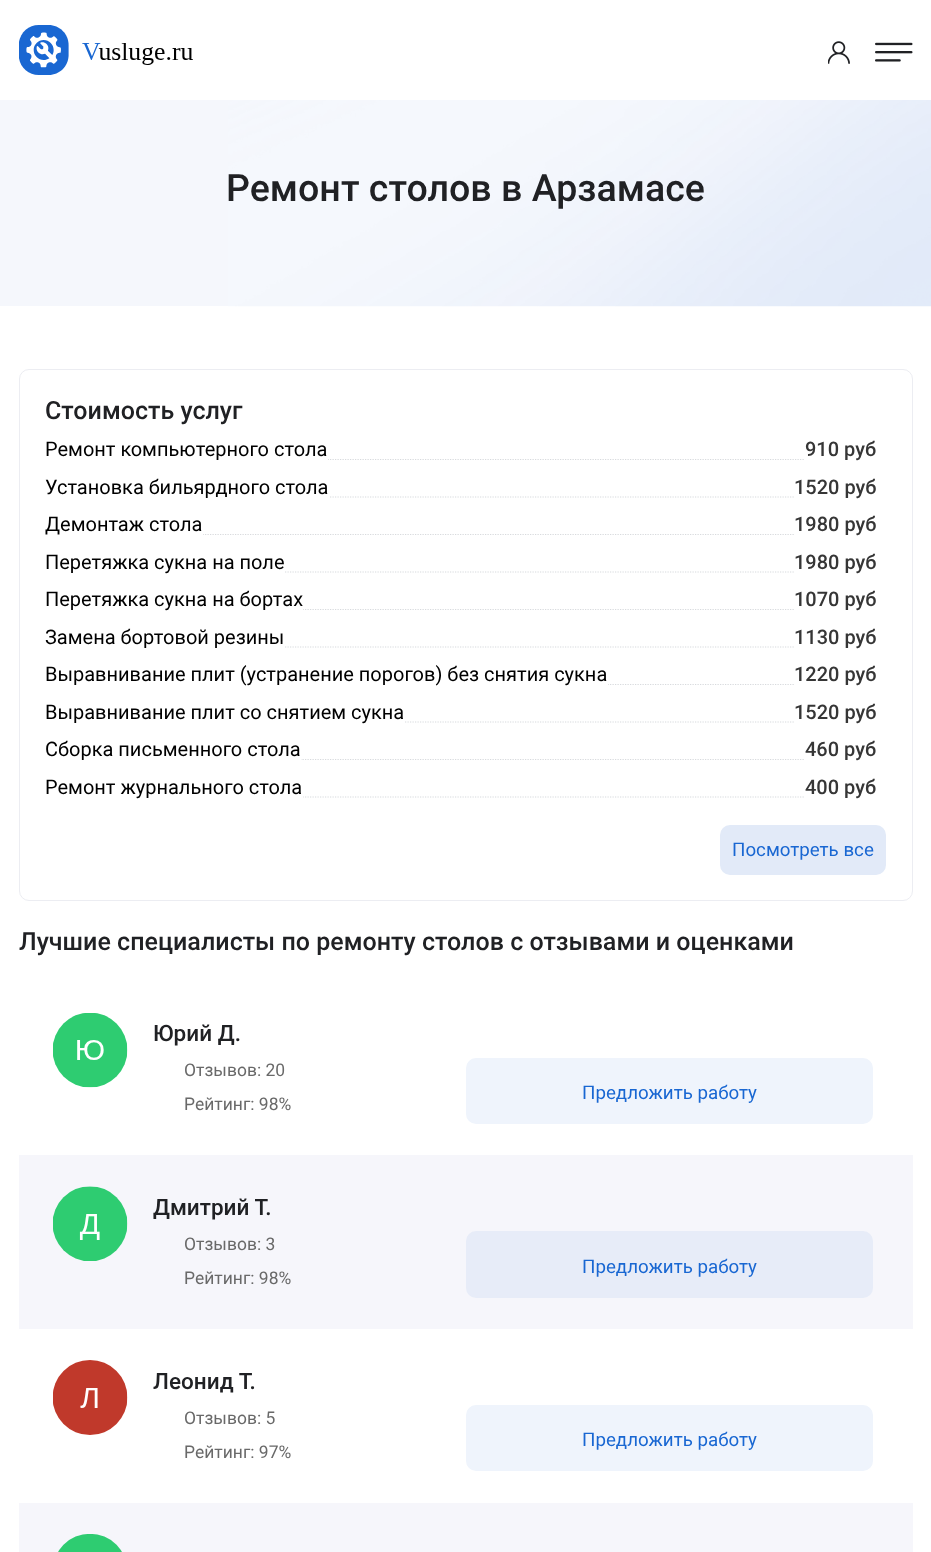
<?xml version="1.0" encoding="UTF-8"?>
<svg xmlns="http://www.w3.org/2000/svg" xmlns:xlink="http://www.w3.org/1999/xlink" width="931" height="1552">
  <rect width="100%" height="100%" fill="#ffffff" />
  <image x="19" y="25" width="174" height="50" xlink:href="image1.png" />
  <image x="828" y="41" width="22" height="23" xlink:href="image2.png" />
  <image x="875" y="42" width="38" height="20" xlink:href="image3.png" />
  <rect y="100" width="931" height="206" fill="#f5f7fc" />
  <image x="228" y="100" width="703" height="207" xlink:href="image4.png" />
  <rect x="19.5" y="369.5" width="893" height="531" rx="9.5" fill="none" stroke="#ecedf2" />
  <path d="M 45 459.5 h 831" fill="none" stroke="#d8dadd" stroke-width="1.2" stroke-dasharray="1.25 1.25" />
  <rect x="45" y="458" width="283" height="3" fill="#ffffff" />
  <rect x="805" y="458" width="71" height="3" fill="#ffffff" />
  <path d="M 45 497 h 831" fill="none" stroke="#d8dadd" stroke-width="1.2" stroke-dasharray="1.25 1.25" />
  <rect x="45" y="496" width="284" height="2" fill="#ffffff" />
  <rect x="795" y="496" width="81" height="2" fill="#ffffff" />
  <path d="M 45 534.5 h 831" fill="none" stroke="#d8dadd" stroke-width="1.2" stroke-dasharray="1.25 1.25" />
  <rect x="45" y="533" width="158" height="3" fill="#ffffff" />
  <rect x="795" y="533" width="81" height="3" fill="#ffffff" />
  <path d="M 45 572 h 831" fill="none" stroke="#d8dadd" stroke-width="1.2" stroke-dasharray="1.25 1.25" />
  <rect x="45" y="571" width="239" height="2" fill="#ffffff" />
  <rect x="795" y="571" width="81" height="2" fill="#ffffff" />
  <path d="M 45 609.5 h 831" fill="none" stroke="#d8dadd" stroke-width="1.2" stroke-dasharray="1.25 1.25" />
  <rect x="45" y="608" width="258" height="3" fill="#ffffff" />
  <rect x="795" y="608" width="81" height="3" fill="#ffffff" />
  <path d="M 45 647 h 831" fill="none" stroke="#d8dadd" stroke-width="1.2" stroke-dasharray="1.25 1.25" />
  <rect x="45" y="646" width="239" height="2" fill="#ffffff" />
  <rect x="795" y="646" width="81" height="2" fill="#ffffff" />
  <path d="M 45 684.5 h 831" fill="none" stroke="#d8dadd" stroke-width="1.2" stroke-dasharray="1.25 1.25" />
  <rect x="45" y="683" width="563" height="3" fill="#ffffff" />
  <rect x="795" y="683" width="81" height="3" fill="#ffffff" />
  <path d="M 45 722 h 831" fill="none" stroke="#d8dadd" stroke-width="1.2" stroke-dasharray="1.25 1.25" />
  <rect x="45" y="721" width="359" height="2" fill="#ffffff" />
  <rect x="795" y="721" width="81" height="2" fill="#ffffff" />
  <path d="M 45 759.5 h 831" fill="none" stroke="#d8dadd" stroke-width="1.2" stroke-dasharray="1.25 1.25" />
  <rect x="45" y="758" width="256" height="3" fill="#ffffff" />
  <rect x="805" y="758" width="71" height="3" fill="#ffffff" />
  <path d="M 45 797 h 831" fill="none" stroke="#d8dadd" stroke-width="1.2" stroke-dasharray="1.25 1.25" />
  <rect x="45" y="796" width="258" height="2" fill="#ffffff" />
  <rect x="805" y="796" width="71" height="2" fill="#ffffff" />
  <rect x="720" y="825" width="166" height="50" rx="10" fill="#e2eaf8" />
  <image x="53" y="1013" width="75" height="75" xlink:href="image5.png" />
  <rect x="466" y="1058" width="407" height="66" rx="10" fill="#eff4fc" />
  <rect x="19" y="1155" width="894" height="174" fill="#f6f6fb" />
  <image x="53" y="1186" width="75" height="75" xlink:href="image6.png" />
  <rect x="466" y="1231" width="407" height="67" rx="10" fill="#e7ecf8" />
  <image x="53" y="1360" width="75" height="75" xlink:href="image7.png" />
  <rect x="466" y="1405" width="407" height="66" rx="10" fill="#eff4fc" />
  <rect x="19" y="1503" width="894" height="49" fill="#f6f6fb" />
  <image x="58" y="1534" width="64" height="18" xlink:href="image8.png" />
  <text x="226" y="201" style="font-family: Roboto; font-size: 37.5px; font-weight: 500; fill: #202124">Ремонт столов в Арзамасе</text>
  <text x="45" y="419" style="font-family: Roboto; font-size: 25px; font-weight: 500; fill: #202124">Стоимость услуг</text>
  <text x="45" y="456" style="font-family: Roboto; font-size: 20px; fill: #000000">Ремонт компьютерного стола</text>
  <text x="805" y="456" style="font-family: Roboto; font-size: 20px; font-weight: 500; fill: #363636">910 руб</text>
  <text x="45" y="494" style="font-family: Roboto; font-size: 20px; fill: #000000">Установка бильярдного стола</text>
  <text x="794" y="494" style="font-family: Roboto; font-size: 20px; font-weight: 500; fill: #363636">1520 руб</text>
  <text x="45" y="531" style="font-family: Roboto; font-size: 20px; fill: #000000">Демонтаж стола</text>
  <text x="794" y="531" style="font-family: Roboto; font-size: 20px; font-weight: 500; fill: #363636">1980 руб</text>
  <text x="45" y="569" style="font-family: Roboto; font-size: 20px; fill: #000000">Перетяжка сукна на поле</text>
  <text x="794" y="569" style="font-family: Roboto; font-size: 20px; font-weight: 500; fill: #363636">1980 руб</text>
  <text x="45" y="606" style="font-family: Roboto; font-size: 20px; fill: #000000">Перетяжка сукна на бортах</text>
  <text x="794" y="606" style="font-family: Roboto; font-size: 20px; font-weight: 500; fill: #363636">1070 руб</text>
  <text x="45" y="644" style="font-family: Roboto; font-size: 20px; fill: #000000">Замена бортовой резины</text>
  <text x="794" y="644" style="font-family: Roboto; font-size: 20px; font-weight: 500; fill: #363636">1130 руб</text>
  <text x="45" y="681" style="font-family: Roboto; font-size: 20px; fill: #000000">Выравнивание плит (устранение порогов) без снятия сукна</text>
  <text x="794" y="681" style="font-family: Roboto; font-size: 20px; font-weight: 500; fill: #363636">1220 руб</text>
  <text x="45" y="719" style="font-family: Roboto; font-size: 20px; fill: #000000">Выравнивание плит со снятием сукна</text>
  <text x="794" y="719" style="font-family: Roboto; font-size: 20px; font-weight: 500; fill: #363636">1520 руб</text>
  <text x="45" y="756" style="font-family: Roboto; font-size: 20px; fill: #000000">Сборка письменного стола</text>
  <text x="805" y="756" style="font-family: Roboto; font-size: 20px; font-weight: 500; fill: #363636">460 руб</text>
  <text x="45" y="794" style="font-family: Roboto; font-size: 20px; fill: #000000">Ремонт журнального стола</text>
  <text x="805" y="794" style="font-family: Roboto; font-size: 20px; font-weight: 500; fill: #363636">400 руб</text>
  <text x="732" y="856" style="font-family: Roboto; font-size: 18.75px; fill: #1967d2">Посмотреть все</text>
  <text x="19" y="950" style="font-family: Roboto; font-size: 25px; font-weight: 500; fill: #202124">Лучшие специалисты по ремонту столов с отзывами и оценками</text>
  <text x="153" y="1041" style="font-family: Roboto; font-size: 22.5px; font-weight: 500; fill: #202124">Юрий Д.</text>
  <text x="184" y="1076" style="font-family: Roboto; font-size: 17.5px; fill: #696969">Отзывов: 20</text>
  <text x="184" y="1110" style="font-family: Roboto; font-size: 17.5px; fill: #696969">Рейтинг: 98%</text>
  <text x="582" y="1099" style="font-family: Roboto; font-size: 18.75px; fill: #1967d2">Предложить работу</text>
  <text x="153" y="1215" style="font-family: Roboto; font-size: 22.5px; font-weight: 500; fill: #202124">Дмитрий Т.</text>
  <text x="184" y="1250" style="font-family: Roboto; font-size: 17.5px; fill: #696969">Отзывов: 3</text>
  <text x="184" y="1284" style="font-family: Roboto; font-size: 17.5px; fill: #696969">Рейтинг: 98%</text>
  <text x="582" y="1273" style="font-family: Roboto; font-size: 18.75px; fill: #1967d2">Предложить работу</text>
  <text x="153" y="1389" style="font-family: Roboto; font-size: 22.5px; font-weight: 500; fill: #202124">Леонид Т.</text>
  <text x="184" y="1424" style="font-family: Roboto; font-size: 17.5px; fill: #696969">Отзывов: 5</text>
  <text x="184" y="1458" style="font-family: Roboto; font-size: 17.5px; fill: #696969">Рейтинг: 97%</text>
  <text x="582" y="1446" style="font-family: Roboto; font-size: 18.75px; fill: #1967d2">Предложить работу</text>
</svg>
